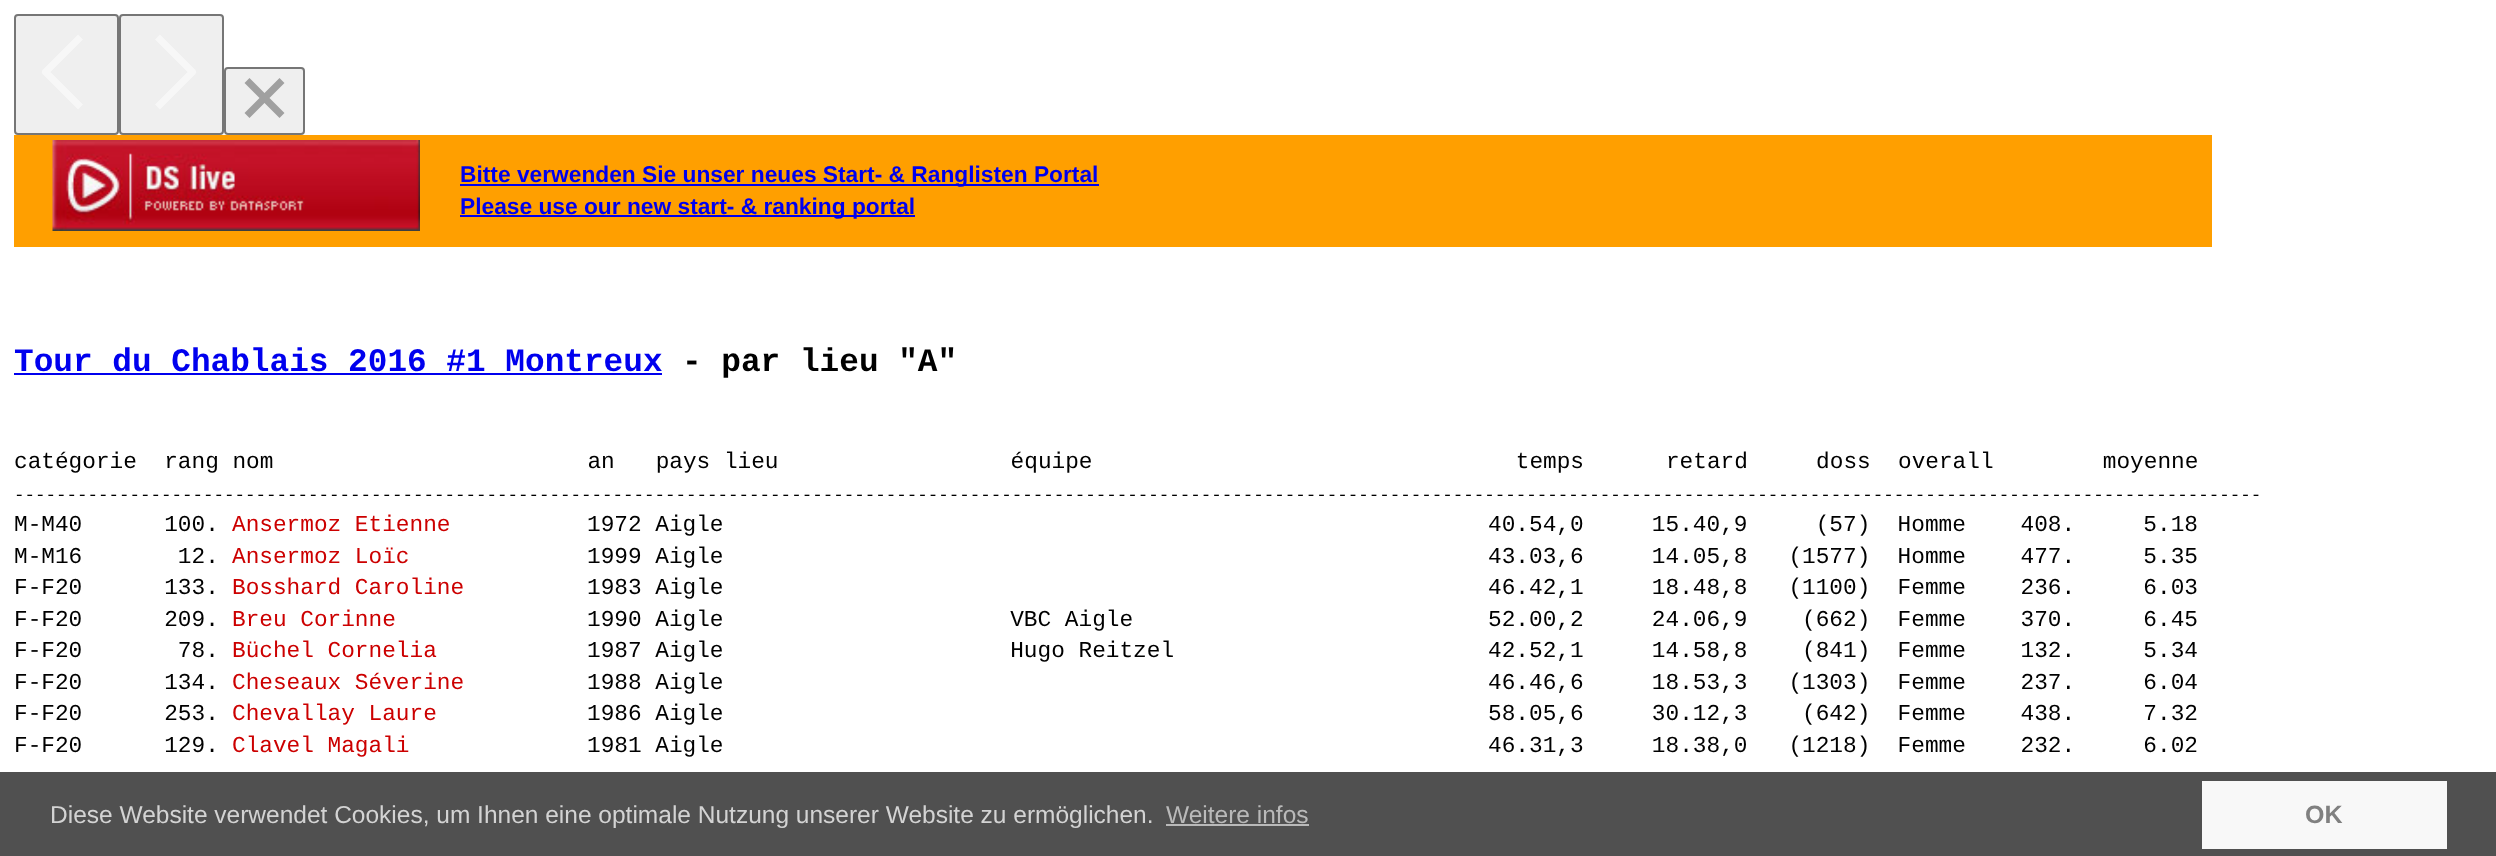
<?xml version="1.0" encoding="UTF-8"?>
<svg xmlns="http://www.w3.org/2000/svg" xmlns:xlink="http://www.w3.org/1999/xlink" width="2496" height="856">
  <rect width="100%" height="100%" fill="#ffffff" />
  <rect x="15" y="15" width="103" height="119" rx="3" fill="#efefef" stroke="#767676" stroke-width="2" />
  <path d="M 80.5 37 l -35 35 l 35 35" fill="none" stroke="#f7f7f7" stroke-width="7" stroke-linejoin="round" />
  <rect x="120" y="15" width="103" height="119" rx="3" fill="#efefef" stroke="#767676" stroke-width="2" />
  <path d="M 157.5 37 l 35 35 l -35 35" fill="none" stroke="#f7f7f7" stroke-width="7" stroke-linejoin="round" />
  <rect x="225" y="68" width="79" height="66" rx="3" fill="#efefef" stroke="#767676" stroke-width="2" />
  <path d="M 247 80.5 l 35 35 m -35 0 l 35 -35" fill="none" stroke="#a0a0a0" stroke-width="7" />
  <rect x="14" y="135" width="2198" height="112" fill="#ff9f00" />
  <image x="52" y="140" width="368" height="91" xlink:href="image1.png" />
  <rect x="460" y="184" width="639" height="2" fill="#0000ee" />
  <rect x="460" y="215" width="455" height="2" fill="#0000ee" />
  <rect x="14" y="373" width="648" height="2" fill="#0000ee" />
  <rect y="772" width="2496" height="84" fill="#505050" />
  <rect x="1166" y="824" width="143" height="2" fill="#b9b9b9" />
  <rect x="2202" y="781" width="245" height="68" fill="#f8f8f8" />
  <text x="460" y="182" style="font-family: Liberation Sans; font-size: 22.75px; font-weight: bold; fill: #0000ee">Bitte verwenden Sie unser neues Start- &amp; Ranglisten Portal</text>
  <text x="460" y="214" style="font-family: Liberation Sans; font-size: 22.75px; font-weight: bold; fill: #0000ee">Please use our new start- &amp; ranking portal</text>
  <text x="14" y="371" style="font-family: Liberation Mono; font-size: 32.75px; font-weight: bold; fill: #0000ee">Tour du Chablais 2016 #1 Montreux</text>
  <text x="682" y="371" style="font-family: Liberation Mono; font-size: 32.75px; font-weight: bold; fill: #000000">- par lieu "A"</text>
  <text x="14" y="468" style="font-family: Liberation Mono; font-size: 22.75px; fill: #000000" xml:space="preserve">catégorie  rang nom                       an   pays lieu                 équipe                               temps      retard     doss  overall        moyenne</text>
  <text x="14" y="500" style="font-family: Liberation Mono; font-size: 17.5px; fill: #000000">----------------------------------------------------------------------------------------------------------------------------------------------------------------------------------------------------------------------</text>
  <text x="14" y="531" style="font-family: Liberation Mono; font-size: 22.75px; fill: #000000" xml:space="preserve">M-M40      100.</text>
  <text x="232" y="531" style="font-family: Liberation Mono; font-size: 22.75px; fill: #cc0000">Ansermoz Etienne</text>
  <text x="587" y="531" style="font-family: Liberation Mono; font-size: 22.75px; fill: #000000" xml:space="preserve">1972 Aigle                                                        40.54,0     15.40,9     (57)  Homme    408.     5.18</text>
  <text x="14" y="563" style="font-family: Liberation Mono; font-size: 22.75px; fill: #000000" xml:space="preserve">M-M16       12.</text>
  <text x="232" y="563" style="font-family: Liberation Mono; font-size: 22.75px; fill: #cc0000">Ansermoz Loïc</text>
  <text x="587" y="563" style="font-family: Liberation Mono; font-size: 22.75px; fill: #000000" xml:space="preserve">1999 Aigle                                                        43.03,6     14.05,8   (1577)  Homme    477.     5.35</text>
  <text x="14" y="594" style="font-family: Liberation Mono; font-size: 22.75px; fill: #000000" xml:space="preserve">F-F20      133.</text>
  <text x="232" y="594" style="font-family: Liberation Mono; font-size: 22.75px; fill: #cc0000">Bosshard Caroline</text>
  <text x="587" y="594" style="font-family: Liberation Mono; font-size: 22.75px; fill: #000000" xml:space="preserve">1983 Aigle                                                        46.42,1     18.48,8   (1100)  Femme    236.     6.03</text>
  <text x="14" y="626" style="font-family: Liberation Mono; font-size: 22.75px; fill: #000000" xml:space="preserve">F-F20      209.</text>
  <text x="232" y="626" style="font-family: Liberation Mono; font-size: 22.75px; fill: #cc0000">Breu Corinne</text>
  <text x="587" y="626" style="font-family: Liberation Mono; font-size: 22.75px; fill: #000000" xml:space="preserve">1990 Aigle                     VBC Aigle                          52.00,2     24.06,9    (662)  Femme    370.     6.45</text>
  <text x="14" y="657" style="font-family: Liberation Mono; font-size: 22.75px; fill: #000000" xml:space="preserve">F-F20       78.</text>
  <text x="232" y="657" style="font-family: Liberation Mono; font-size: 22.75px; fill: #cc0000">Büchel Cornelia</text>
  <text x="587" y="657" style="font-family: Liberation Mono; font-size: 22.75px; fill: #000000" xml:space="preserve">1987 Aigle                     Hugo Reitzel                       42.52,1     14.58,8    (841)  Femme    132.     5.34</text>
  <text x="14" y="689" style="font-family: Liberation Mono; font-size: 22.75px; fill: #000000" xml:space="preserve">F-F20      134.</text>
  <text x="232" y="689" style="font-family: Liberation Mono; font-size: 22.75px; fill: #cc0000">Cheseaux Séverine</text>
  <text x="587" y="689" style="font-family: Liberation Mono; font-size: 22.75px; fill: #000000" xml:space="preserve">1988 Aigle                                                        46.46,6     18.53,3   (1303)  Femme    237.     6.04</text>
  <text x="14" y="720" style="font-family: Liberation Mono; font-size: 22.75px; fill: #000000" xml:space="preserve">F-F20      253.</text>
  <text x="232" y="720" style="font-family: Liberation Mono; font-size: 22.75px; fill: #cc0000">Chevallay Laure</text>
  <text x="587" y="720" style="font-family: Liberation Mono; font-size: 22.75px; fill: #000000" xml:space="preserve">1986 Aigle                                                        58.05,6     30.12,3    (642)  Femme    438.     7.32</text>
  <text x="14" y="752" style="font-family: Liberation Mono; font-size: 22.75px; fill: #000000" xml:space="preserve">F-F20      129.</text>
  <text x="232" y="752" style="font-family: Liberation Mono; font-size: 22.75px; fill: #cc0000">Clavel Magali</text>
  <text x="587" y="752" style="font-family: Liberation Mono; font-size: 22.75px; fill: #000000" xml:space="preserve">1981 Aigle                                                        46.31,3     18.38,0   (1218)  Femme    232.     6.02</text>
  <text x="50" y="823" style="font-family: Liberation Sans; font-size: 24.5px; fill: #d3d3d3">Diese Website verwendet Cookies, um Ihnen eine optimale Nutzung unserer Website zu ermöglichen.</text>
  <text x="1166" y="823" style="font-family: Liberation Sans; font-size: 24.5px; fill: #b9b9b9">Weitere infos</text>
  <text x="2305" y="823" style="font-family: Liberation Sans; font-size: 25px; font-weight: bold; fill: #808080">OK</text>
</svg>
